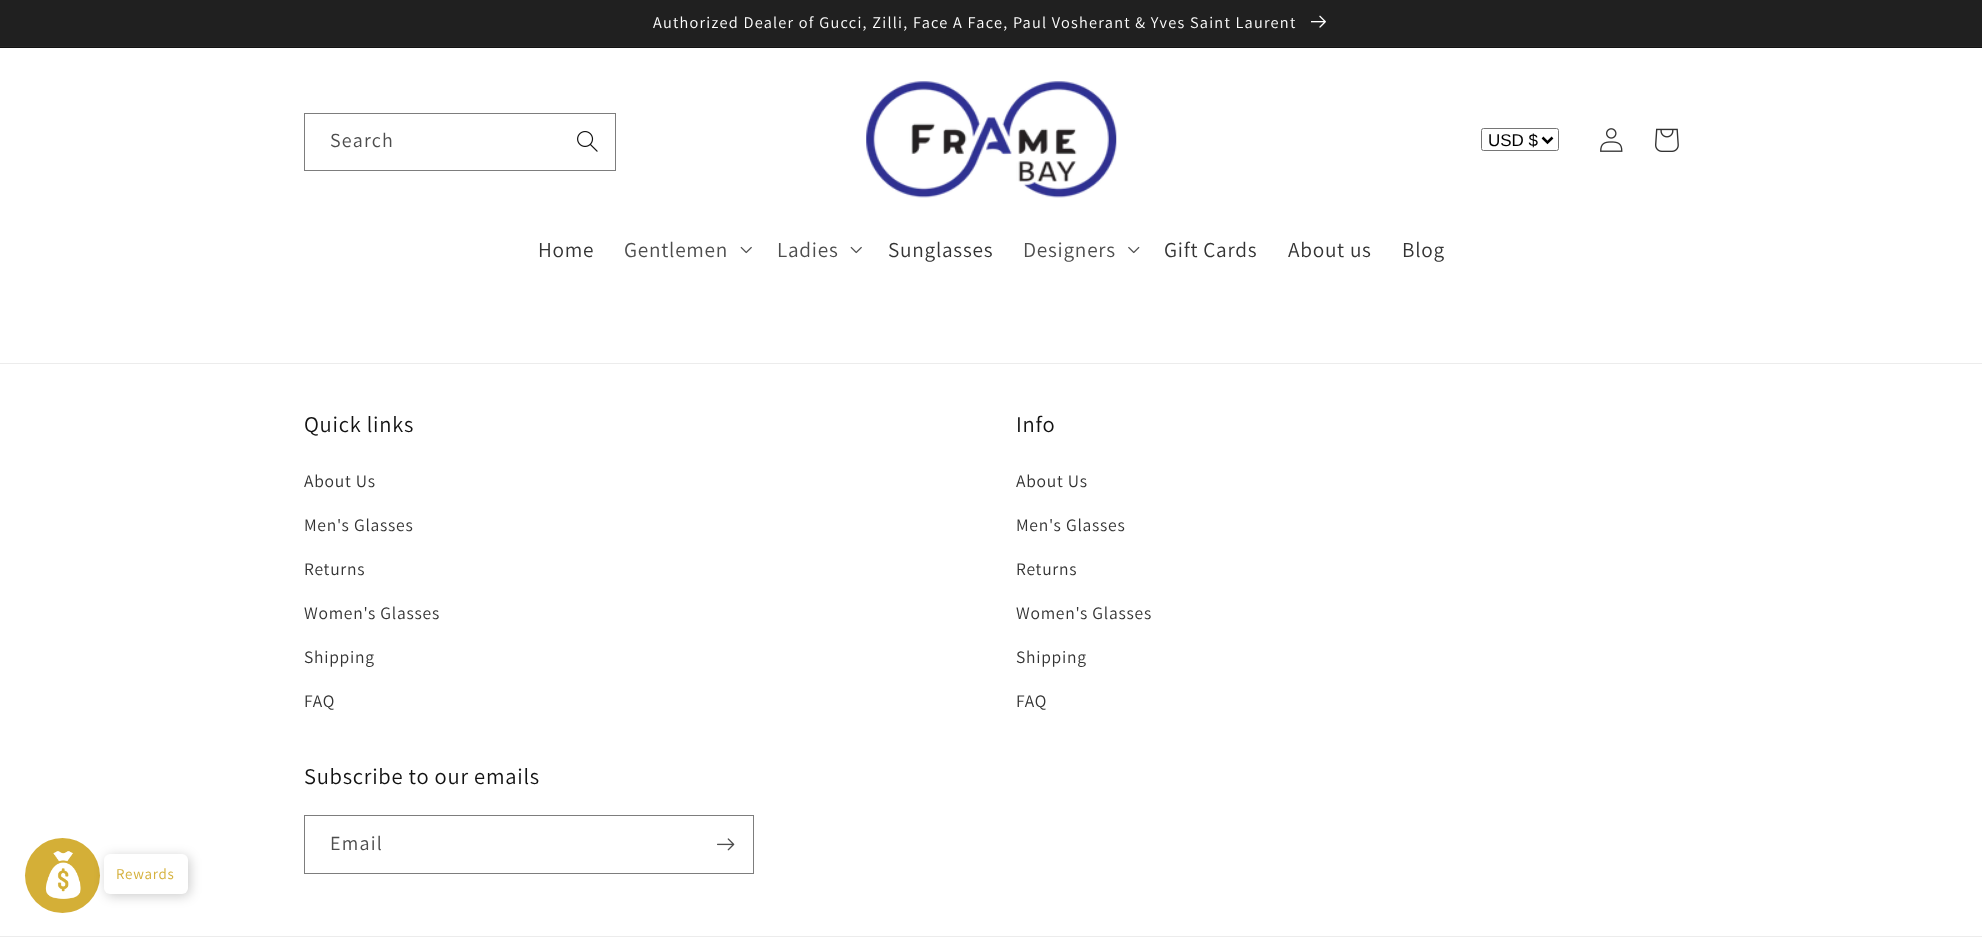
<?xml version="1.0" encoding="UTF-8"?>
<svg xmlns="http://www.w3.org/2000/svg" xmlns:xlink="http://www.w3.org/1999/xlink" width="1982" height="937">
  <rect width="100%" height="100%" fill="#ffffff" />
  <rect y="47" width="1982" height="1" fill="#121212" />
  <rect y="46" width="1982" height="1" fill="#252525" />
  <rect width="1982" height="46" fill="#202020" />
  <image x="1311" y="15" width="15" height="13" xlink:href="image1.png" />
  <image x="577" y="131" width="21" height="21" xlink:href="image2.png" />
  <rect x="304.5" y="113.5" width="311" height="57" fill="none" stroke="#7d7d7d" />
  <image x="866" y="81" width="251" height="117" xlink:href="image3.png" />
  <rect x="1481.5" y="128.5" width="77" height="22" rx="2" fill="none" stroke="#767676" />
  <path d="M 1542.5 137.5 l 5 5 l 5 -5" fill="none" stroke="#000000" stroke-width="2.5" />
  <image x="1600" y="128" width="23" height="24" xlink:href="image4.png" />
  <image x="1655" y="128" width="24" height="24" xlink:href="image5.png" />
  <image x="740" y="246" width="12" height="8" xlink:href="image6.png" />
  <image x="850" y="246" width="12" height="8" xlink:href="image6.png" />
  <image x="1128" y="246" width="12" height="8" xlink:href="image7.png" />
  <rect y="363" width="1982" height="1" fill="#ececec" />
  <rect x="304.5" y="815.5" width="449" height="58" fill="none" stroke="#7d7d7d" />
  <image x="717" y="838" width="18" height="13" xlink:href="image8.png" />
  <rect y="936" width="1982" height="1" fill="#ececec" />
  <circle cx="62.5" cy="875.5" r="37.5" fill="#d4af37" />
  <image x="45" y="851" width="36" height="48" xlink:href="image9.png" />
  <rect x="106" y="856" width="84" height="40" rx="6" fill="#000000" fill-opacity="0.2" filter="blur(6px)" />
  <rect x="104" y="854" width="84" height="40" rx="6" fill="#ffffff" />
  <text x="653" y="28" style="font-family: Assistant; font-size: 16.25px; letter-spacing: 1.25px; fill: #ffffff">Authorized Dealer of Gucci, Zilli, Face A Face, Paul Vosherant &amp; Yves Saint Laurent</text>
  <text x="330" y="147" style="font-family: Assistant; font-size: 20px; letter-spacing: 1.25px; fill: #4d4d4d">Search</text>
  <text x="1488" y="146" style="font-family: Liberation Sans; font-size: 17px; fill: #000000">USD $</text>
  <text x="538" y="257" style="font-family: Assistant; font-size: 21.25px; letter-spacing: 0.75px; fill: #333333">Home</text>
  <text x="624" y="257" style="font-family: Assistant; font-size: 21.25px; letter-spacing: 0.75px; fill: #4d4d4d">Gentlemen</text>
  <text x="777" y="257" style="font-family: Assistant; font-size: 21.25px; letter-spacing: 0.75px; fill: #4d4d4d">Ladies</text>
  <text x="888" y="257" style="font-family: Assistant; font-size: 21.25px; letter-spacing: 0.75px; fill: #333333">Sunglasses</text>
  <text x="1023" y="257" style="font-family: Assistant; font-size: 21.25px; letter-spacing: 0.75px; fill: #4d4d4d">Designers</text>
  <text x="1164" y="257" style="font-family: Assistant; font-size: 21.25px; letter-spacing: 0.75px; fill: #333333">Gift Cards</text>
  <text x="1288" y="257" style="font-family: Assistant; font-size: 21.25px; letter-spacing: 0.75px; fill: #333333">About us</text>
  <text x="1402" y="257" style="font-family: Assistant; font-size: 21.25px; letter-spacing: 0.75px; fill: #333333">Blog</text>
  <text x="304" y="432" style="font-family: Assistant; font-size: 22.5px; letter-spacing: 0.75px; fill: #121212">Quick links</text>
  <text x="304" y="487" style="font-family: Assistant; font-size: 17.5px; letter-spacing: 0.75px; fill: #333333">About Us</text>
  <text x="304" y="531" style="font-family: Assistant; font-size: 17.5px; letter-spacing: 0.75px; fill: #333333">Men's Glasses</text>
  <text x="304" y="575" style="font-family: Assistant; font-size: 17.5px; letter-spacing: 0.75px; fill: #333333">Returns</text>
  <text x="304" y="619" style="font-family: Assistant; font-size: 17.5px; letter-spacing: 0.75px; fill: #333333">Women's Glasses</text>
  <text x="304" y="663" style="font-family: Assistant; font-size: 17.5px; letter-spacing: 0.75px; fill: #333333">Shipping</text>
  <text x="304" y="707" style="font-family: Assistant; font-size: 17.5px; letter-spacing: 0.75px; fill: #333333">FAQ</text>
  <text x="1016" y="432" style="font-family: Assistant; font-size: 22.5px; letter-spacing: 0.75px; fill: #121212">Info</text>
  <text x="1016" y="487" style="font-family: Assistant; font-size: 17.5px; letter-spacing: 0.75px; fill: #333333">About Us</text>
  <text x="1016" y="531" style="font-family: Assistant; font-size: 17.5px; letter-spacing: 0.75px; fill: #333333">Men's Glasses</text>
  <text x="1016" y="575" style="font-family: Assistant; font-size: 17.5px; letter-spacing: 0.75px; fill: #333333">Returns</text>
  <text x="1016" y="619" style="font-family: Assistant; font-size: 17.5px; letter-spacing: 0.75px; fill: #333333">Women's Glasses</text>
  <text x="1016" y="663" style="font-family: Assistant; font-size: 17.5px; letter-spacing: 0.75px; fill: #333333">Shipping</text>
  <text x="1016" y="707" style="font-family: Assistant; font-size: 17.5px; letter-spacing: 0.75px; fill: #333333">FAQ</text>
  <text x="304" y="784" style="font-family: Assistant; font-size: 22.5px; letter-spacing: 0.75px; fill: #121212">Subscribe to our emails</text>
  <text x="330" y="850" style="font-family: Assistant; font-size: 20px; letter-spacing: 1.25px; fill: #4d4d4d">Email</text>
  <text x="116" y="879" style="font-family: Assistant; font-size: 15px; letter-spacing: 0.75px; fill: #d4af37">Rewards</text>
</svg>
